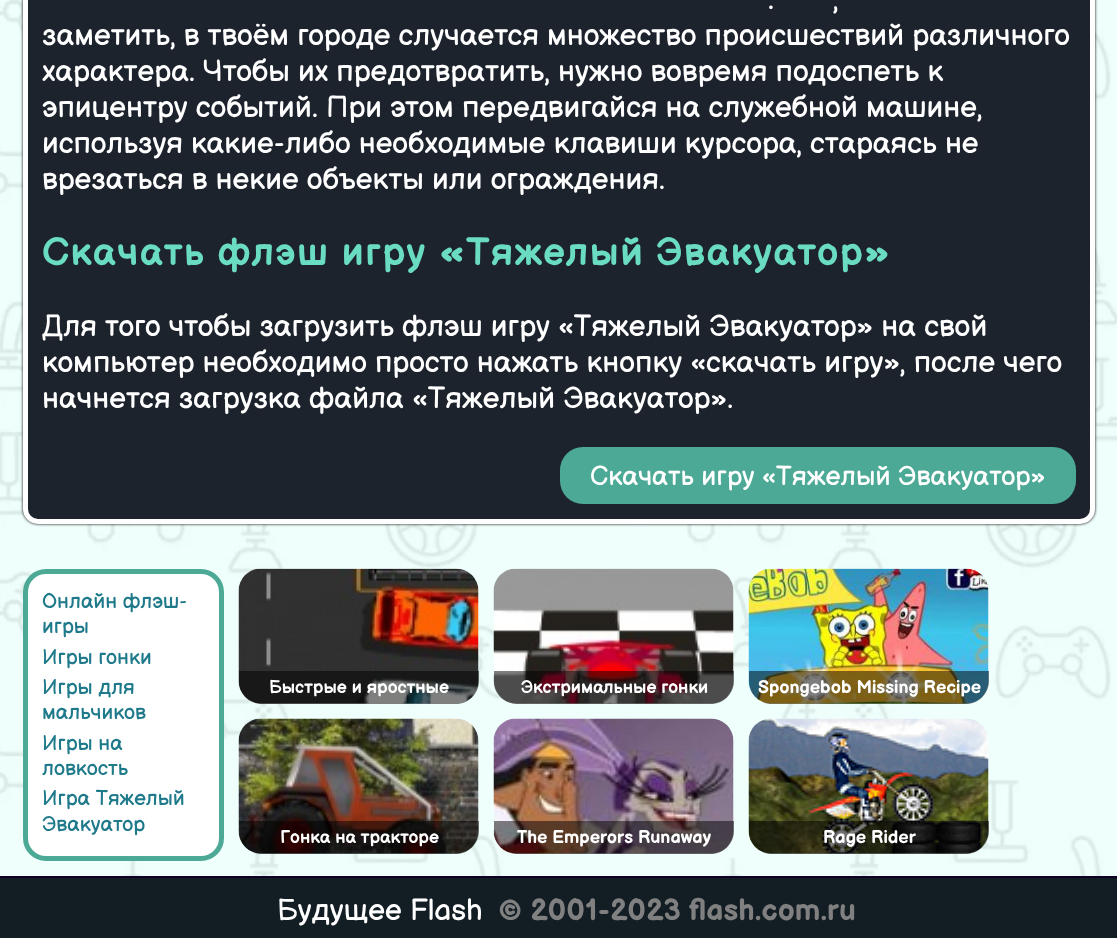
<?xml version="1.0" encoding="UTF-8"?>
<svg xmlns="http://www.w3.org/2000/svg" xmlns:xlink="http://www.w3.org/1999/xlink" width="1117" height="938">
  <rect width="100%" height="100%" fill="#ffffff" />
  <image x="0" y="0" width="1117" height="876" xlink:href="image1.png" />
  <rect x="23" y="-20" width="1072" height="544" rx="15" fill="#000000" filter="blur(1.5px)" />
  <rect x="25.5" y="-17.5" width="1067" height="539" rx="12.5" fill="#1d232d" stroke="#ffffff" stroke-width="5" />
  <rect x="560" y="447" width="516" height="57" rx="23" fill="#4ca996" />
  <rect x="25.5" y="571.5" width="196" height="287" rx="20.5" fill="#ffffff" stroke="#4ca996" stroke-width="5" />
  <image x="238" y="568" width="241" height="136" xlink:href="image2.png" />
  <path d="M 239 671 h 240 v 10 c 0 12.5 -10.5 23 -23 23 h -194 c -12.5 0 -23 -10.5 -23 -23 z" fill="#000000" fill-opacity="0.5" />
  <image x="493" y="568" width="241" height="136" xlink:href="image3.png" />
  <path d="M 494 671 h 240 v 10 c 0 12.5 -10.5 23 -23 23 h -194 c -12.5 0 -23 -10.5 -23 -23 z" fill="#000000" fill-opacity="0.5" />
  <image x="748" y="568" width="241" height="136" xlink:href="image4.png" />
  <path d="M 749 671 h 240 v 10 c 0 12.5 -10.5 23 -23 23 h -194 c -12.5 0 -23 -10.5 -23 -23 z" fill="#000000" fill-opacity="0.5" />
  <image x="238" y="718" width="241" height="136" xlink:href="image5.png" />
  <path d="M 239 821 h 240 v 10 c 0 12.5 -10.5 23 -23 23 h -194 c -12.5 0 -23 -10.5 -23 -23 z" fill="#000000" fill-opacity="0.5" />
  <image x="493" y="718" width="241" height="136" xlink:href="image6.png" />
  <path d="M 494 821 h 240 v 10 c 0 12.5 -10.5 23 -23 23 h -194 c -12.5 0 -23 -10.5 -23 -23 z" fill="#000000" fill-opacity="0.5" />
  <image x="748" y="718" width="241" height="136" xlink:href="image7.png" />
  <path d="M 749 821 h 240 v 10 c 0 12.5 -10.5 23 -23 23 h -194 c -12.5 0 -23 -10.5 -23 -23 z" fill="#000000" fill-opacity="0.5" />
  <rect y="878" width="1117" height="60" fill="#131d24" />
  <rect y="876" width="1117" height="2" fill="#0e0023" />
  <text x="768" y="9" style="font-family: Balsamiq Sans; font-size: 30px; fill: #ffffff">.</text>
  <text x="833" y="9" style="font-family: Balsamiq Sans; font-size: 30px; fill: #ffffff">,</text>
  <text x="42" y="45" style="font-family: Balsamiq Sans; font-size: 30px; fill: #ffffff">заметить, в твоём городе случается множество происшествий различного</text>
  <text x="42" y="81" style="font-family: Balsamiq Sans; font-size: 30px; fill: #ffffff">характера. Чтобы их предотвратить, нужно вовремя подоспеть к</text>
  <text x="42" y="117" style="font-family: Balsamiq Sans; font-size: 30px; fill: #ffffff">эпицентру событий. При этом передвигайся на служебной машине,</text>
  <text x="42" y="153" style="font-family: Balsamiq Sans; font-size: 30px; fill: #ffffff">используя какие-либо необходимые клавиши курсора, стараясь не</text>
  <text x="42" y="189" style="font-family: Balsamiq Sans; font-size: 30px; fill: #ffffff">врезаться в некие объекты или ограждения.</text>
  <text x="42" y="265" style="font-family: Balsamiq Sans; font-size: 39px; font-weight: bold; letter-spacing: 1.5px; fill: #6adcc1">Скачать флэш игру «Тяжелый Эвакуатор»</text>
  <text x="42" y="336" style="font-family: Balsamiq Sans; font-size: 30px; fill: #ffffff">Для того чтобы загрузить флэш игру «Тяжелый Эвакуатор» на свой</text>
  <text x="42" y="372" style="font-family: Balsamiq Sans; font-size: 30px; fill: #ffffff">компьютер необходимо просто нажать кнопку «скачать игру», после чего</text>
  <text x="42" y="408" style="font-family: Balsamiq Sans; font-size: 30px; fill: #ffffff">начнется загрузка файла «Тяжелый Эвакуатор».</text>
  <text x="590" y="485" style="font-family: Balsamiq Sans; font-size: 27px; fill: #ffffff">Скачать игру «Тяжелый Эвакуатор»</text>
  <text x="42" y="608" style="font-family: Balsamiq Sans; font-size: 21px; fill: #1e7a8a">Онлайн флэш-</text>
  <text x="42" y="633" style="font-family: Balsamiq Sans; font-size: 21px; fill: #1e7a8a">игры</text>
  <text x="42" y="664" style="font-family: Balsamiq Sans; font-size: 21px; fill: #1e7a8a">Игры гонки</text>
  <text x="42" y="694" style="font-family: Balsamiq Sans; font-size: 21px; fill: #1e7a8a">Игры для</text>
  <text x="42" y="719" style="font-family: Balsamiq Sans; font-size: 21px; fill: #1e7a8a">мальчиков</text>
  <text x="42" y="750" style="font-family: Balsamiq Sans; font-size: 21px; fill: #1e7a8a">Игры на</text>
  <text x="42" y="775" style="font-family: Balsamiq Sans; font-size: 21px; fill: #1e7a8a">ловкость</text>
  <text x="42" y="805" style="font-family: Balsamiq Sans; font-size: 21px; fill: #1e7a8a">Игра Тяжелый</text>
  <text x="42" y="831" style="font-family: Balsamiq Sans; font-size: 21px; fill: #1e7a8a">Эвакуатор</text>
  <text x="269" y="693" style="font-family: Balsamiq Sans; font-size: 18px; font-weight: bold; fill: #ffffff">Быстрые и яростные</text>
  <text x="521" y="693" style="font-family: Balsamiq Sans; font-size: 18px; font-weight: bold; fill: #ffffff">Экстримальные гонки</text>
  <text x="758" y="693" style="font-family: Balsamiq Sans; font-size: 18px; font-weight: bold; fill: #ffffff">Spongebob Missing Recipe</text>
  <text x="280" y="843" style="font-family: Balsamiq Sans; font-size: 18px; font-weight: bold; fill: #ffffff">Гонка на тракторе</text>
  <text x="517" y="843" style="font-family: Balsamiq Sans; font-size: 18px; font-weight: bold; fill: #ffffff">The Emperors Runaway</text>
  <text x="823" y="843" style="font-family: Balsamiq Sans; font-size: 18px; font-weight: bold; fill: #ffffff">Rage Rider</text>
  <text x="277" y="920" style="font-family: Balsamiq Sans; font-size: 30px; fill: #ffffff">Будущее Flash</text>
  <text x="498" y="920" style="font-family: Balsamiq Sans; font-size: 30px; font-weight: bold; fill: #808080">© 2001-2023 flash.com.ru</text>
</svg>
